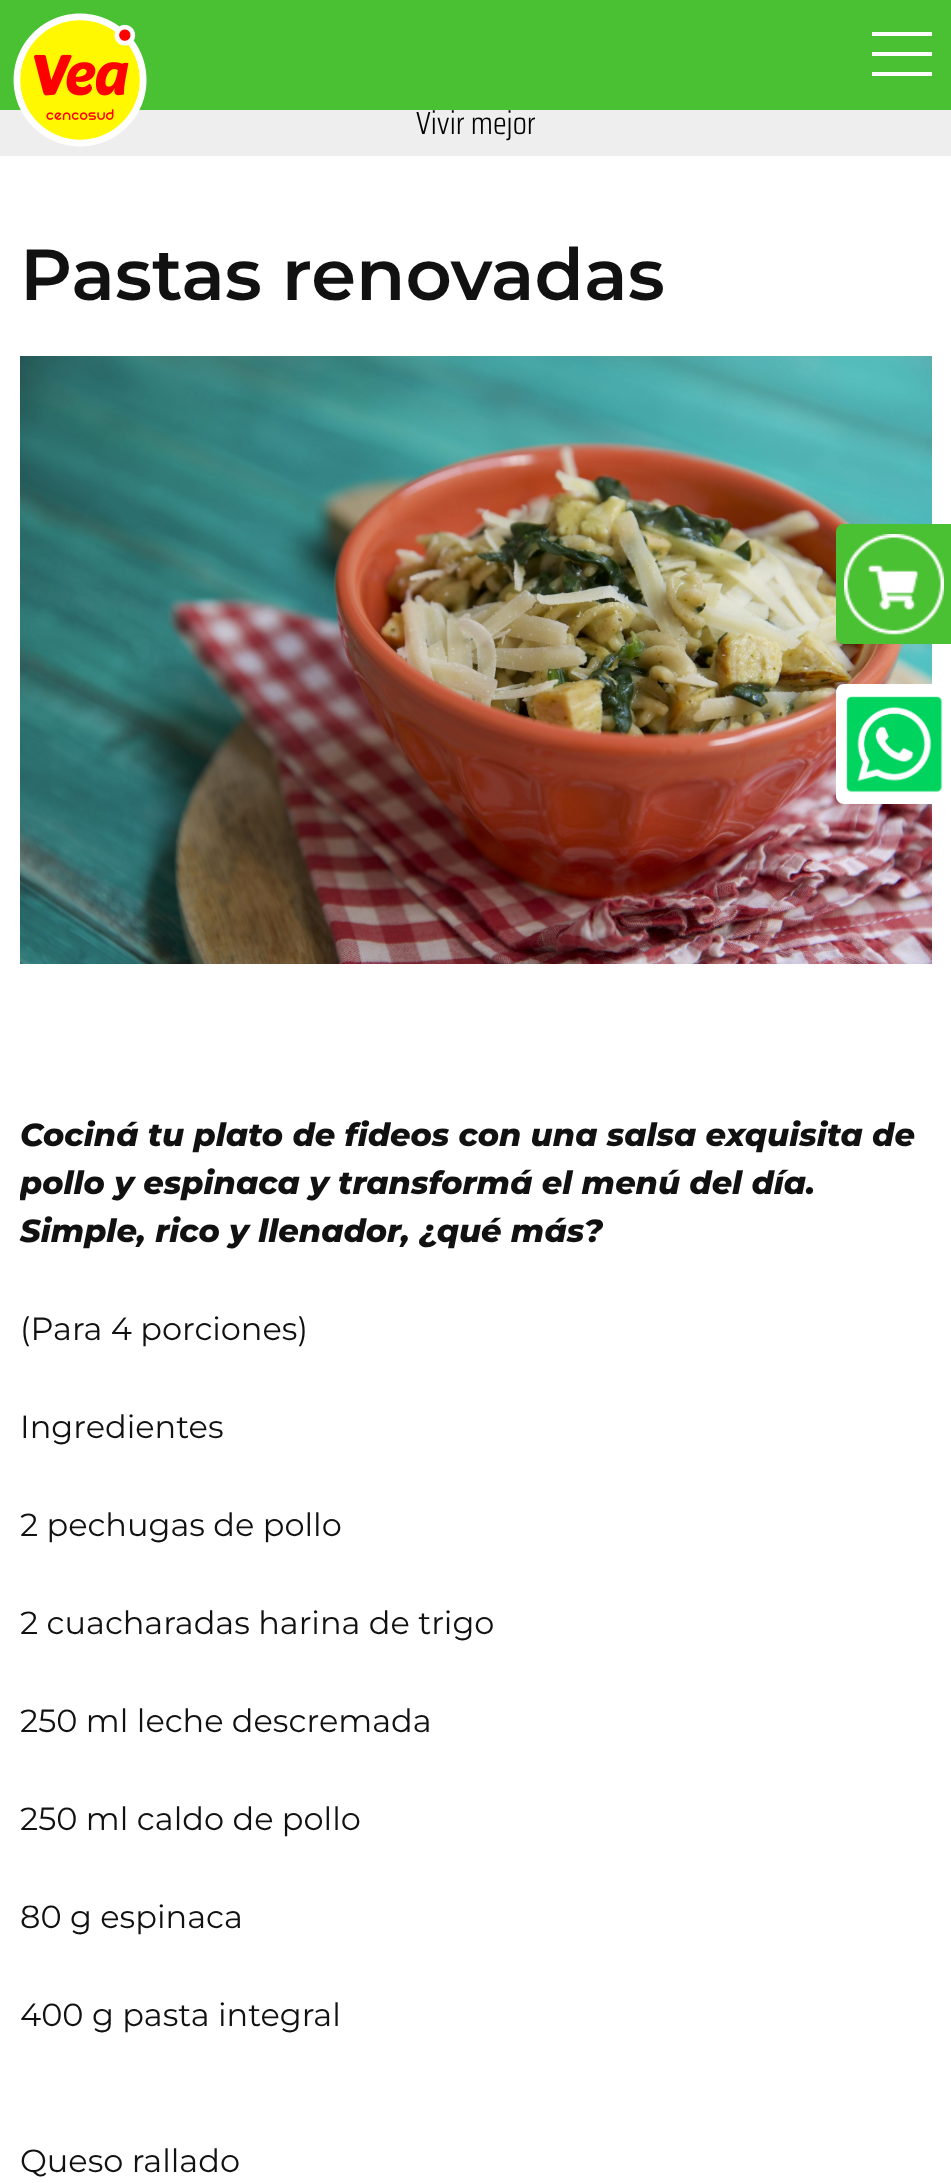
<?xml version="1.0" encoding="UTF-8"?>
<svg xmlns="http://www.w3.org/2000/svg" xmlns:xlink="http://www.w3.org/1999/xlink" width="951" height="2183">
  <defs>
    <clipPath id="clip1"><rect x="20" y="236" width="912" height="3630" rx="16" /></clipPath>
  </defs>
  <rect width="100%" height="100%" fill="#ffffff" />
  <rect width="951" height="110" fill="#4ac132" />
  <rect y="110" width="951" height="46" fill="#eeeeee" />
  <image x="13" y="13" width="134" height="134" xlink:href="image1.png" />
  <rect x="872" y="32" width="60" height="4" fill="#ffffff" />
  <rect x="872" y="52" width="60" height="4" fill="#ffffff" />
  <rect x="872" y="72" width="60" height="4" fill="#ffffff" />
  <image x="20" y="356" width="912" height="608" xlink:href="image2.png" />
  <path d="M 844 524 h 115 v 120 h -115 c -4.5 0 -8 -3.5 -8 -8 v -104 c 0 -4.5 3.5 -8 8 -8 z" fill="#4ac132" />
  <image x="844" y="534" width="100" height="101" xlink:href="image3.png" />
  <path d="M 844 684 h 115 v 120 h -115 c -4.5 0 -8 -3.5 -8 -8 v -104 c 0 -4.5 3.5 -8 8 -8 z" fill="#ffffff" />
  <image x="846" y="696" width="97" height="97" xlink:href="image4.png" />
  <text x="416" y="134" style="font-family: Saira Condensed; font-size: 32px; font-weight: 300; fill: #000000">Vivir mejor</text>
  <text x="20" y="300" style="font-family: Montserrat; font-size: 72px; font-weight: 600; fill: #111111">Pastas renovadas</text>
  <text x="20" y="1146" style="font-family: Montserrat; font-size: 32px; font-weight: 800; font-style: italic; fill: #111111">Cociná tu plato de fideos con una salsa exquisita de</text>
  <g clip-path="url(#clip1)">
    <text x="20" y="1194" style="font-family: Montserrat; font-size: 32px; font-weight: 800; font-style: italic; fill: #111111">pollo y espinaca y transformá el menú del día.</text>
  </g>
  <text x="20" y="1242" style="font-family: Montserrat; font-size: 32px; font-weight: 800; font-style: italic; fill: #111111">Simple, rico y llenador, ¿qué más?</text>
  <text x="20" y="1340" style="font-family: Montserrat; font-size: 32px; fill: #111111">(Para 4 porciones)</text>
  <text x="20" y="1438" style="font-family: Montserrat; font-size: 32px; fill: #111111">Ingredientes</text>
  <text x="20" y="1536" style="font-family: Montserrat; font-size: 32px; fill: #111111">2 pechugas de pollo</text>
  <text x="20" y="1634" style="font-family: Montserrat; font-size: 32px; fill: #111111">2 cuacharadas harina de trigo</text>
  <text x="20" y="1732" style="font-family: Montserrat; font-size: 32px; fill: #111111">250 ml leche descremada</text>
  <text x="20" y="1830" style="font-family: Montserrat; font-size: 32px; fill: #111111">250 ml caldo de pollo</text>
  <text x="20" y="1928" style="font-family: Montserrat; font-size: 32px; fill: #111111">80 g espinaca</text>
  <text x="20" y="2026" style="font-family: Montserrat; font-size: 32px; fill: #111111">400 g pasta integral</text>
  <text x="20" y="2172" style="font-family: Montserrat; font-size: 32px; fill: #111111">Queso rallado</text>
</svg>
